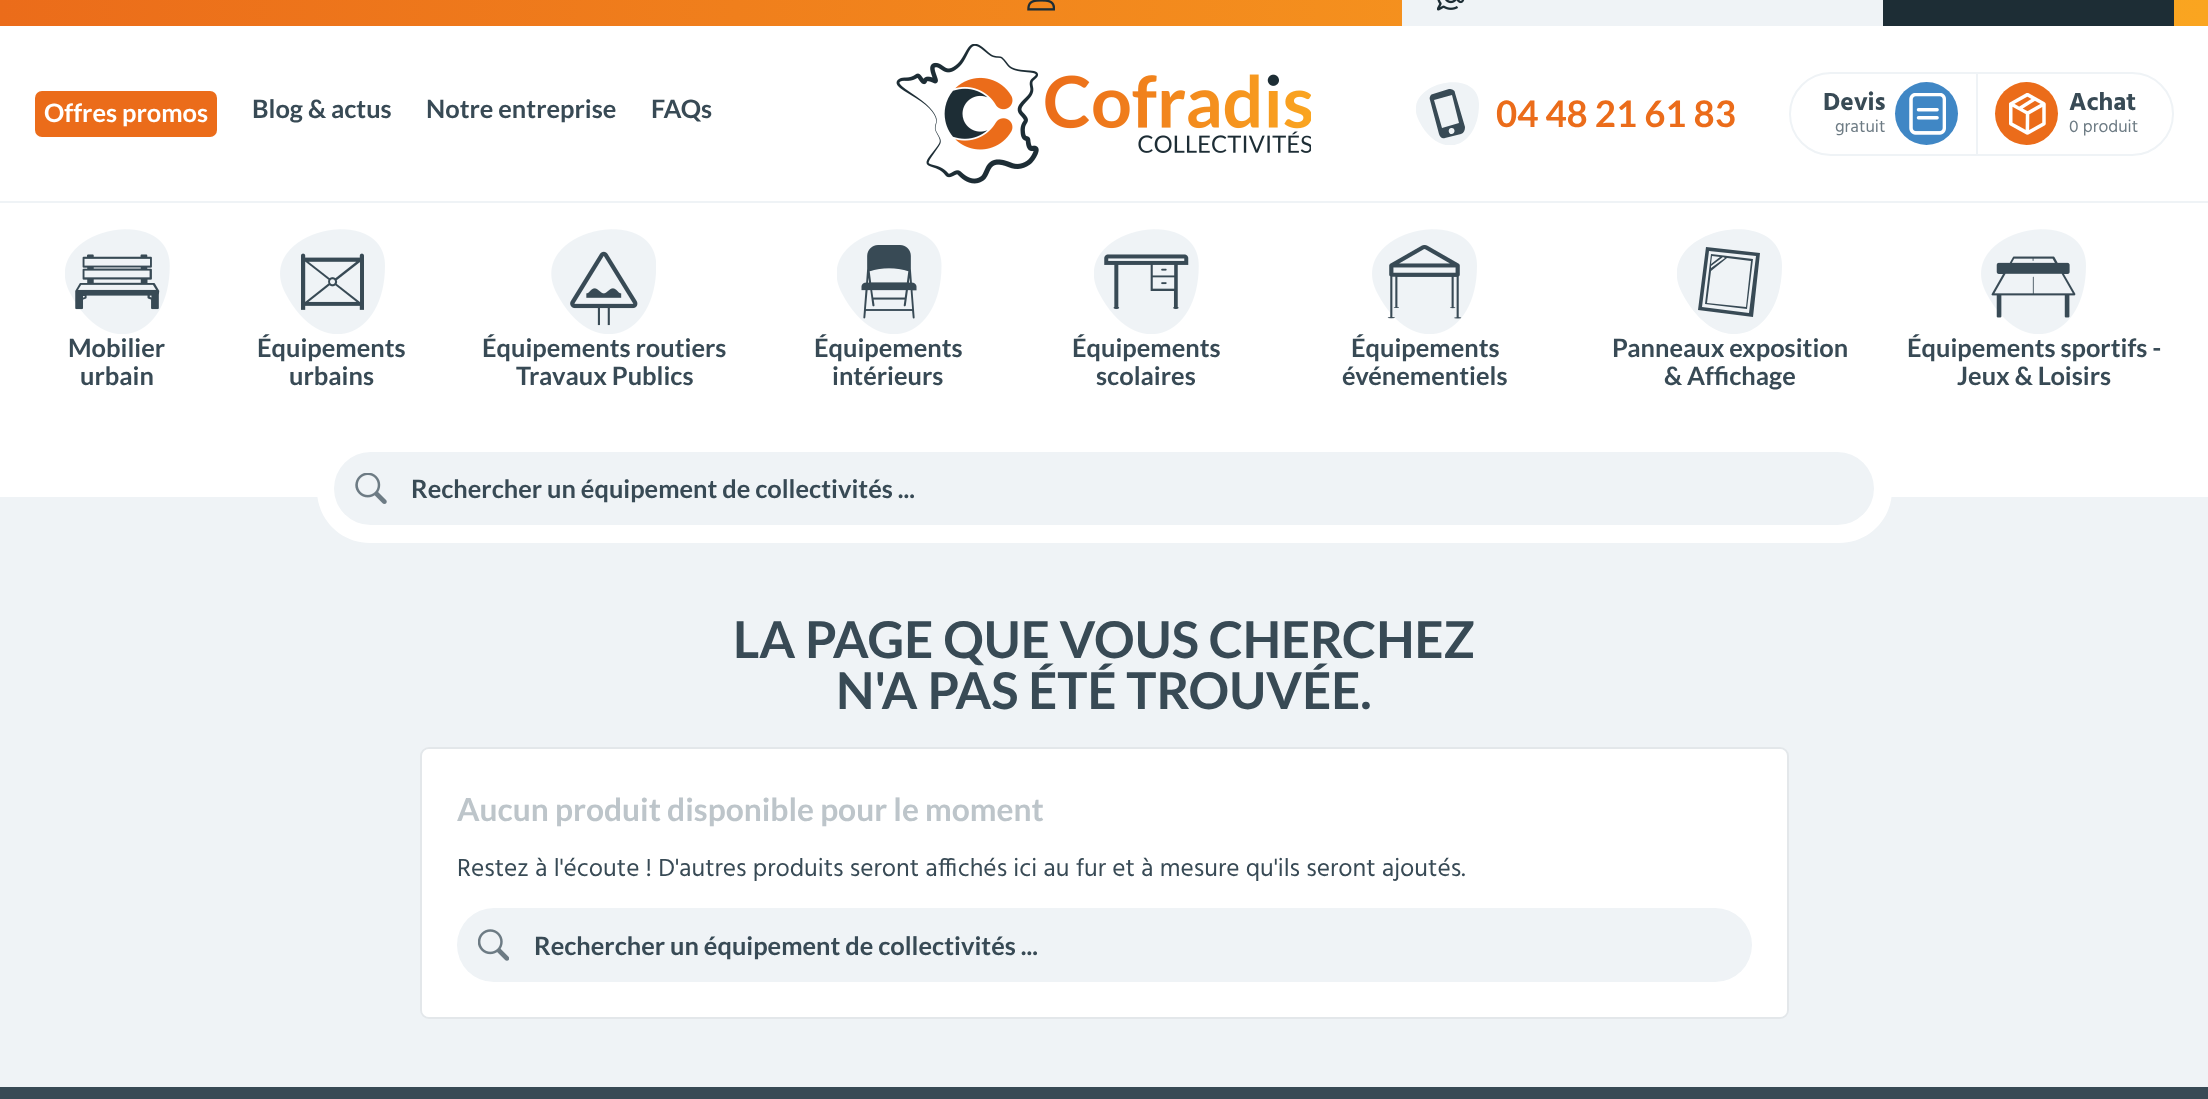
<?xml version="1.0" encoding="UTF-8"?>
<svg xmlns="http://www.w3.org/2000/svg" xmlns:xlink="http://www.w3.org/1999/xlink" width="2208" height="1099">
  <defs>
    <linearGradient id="g1" gradientUnits="userSpaceOnUse" x1="0" y1="-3.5" x2="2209" y2="-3.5"><stop offset="0" stop-color="#eb6c1a" /><stop offset="1" stop-color="#faa520" /></linearGradient>
    <clipPath id="clip1"><rect x="1416" y="82" width="63" height="63" /></clipPath>
    <clipPath id="clip2"><rect x="1677" y="229" width="105" height="105" /></clipPath>
  </defs>
  <rect width="100%" height="100%" fill="#ffffff" />
  <rect width="2208" height="26" fill="url(#g1)" />
  <image x="1027" y="0" width="28" height="11" xlink:href="image1.png" />
  <rect x="1402" width="481" height="26" fill="#eff3f6" />
  <image x="1437" y="0" width="28" height="11" xlink:href="image2.png" />
  <rect x="1883" width="291" height="26" fill="#1d2d35" />
  <rect x="35" y="91" width="182" height="46" rx="7" fill="#eb6c1a" />
  <image x="896" y="44" width="415" height="140" xlink:href="image3.png" />
  <g clip-path="url(#clip1)">
    <path d="M 1479 104 c 0 44 -39 58 -60 17 c -20 -38 60 -56 60 -17 z" fill="#eff3f6" />
  </g>
  <path d="M 1449 89 l -16 5 c -2 0 -4 3 -3 6 l 9 34 c 1 3 3 5 6 4 l 16 -4 c 3 -1 4 -4 4 -7 l -10 -34 c 0 -3 -3 -4 -6 -4 z m 3 45 c -3 1 -5 -5 -1 -6 c 4 -1 5 5 1 6 z m 7 -11 l -17 5 l -8 -28 l 18 -5 z" fill="#384a55" />
  <rect x="1790" y="73" width="383" height="82" rx="41" fill="none" stroke="#eff3f6" stroke-width="2" />
  <circle cx="1926.5" cy="113.5" r="31.5" fill="#4087c5" />
  <image x="1909" y="93" width="37" height="42" xlink:href="image4.png" />
  <rect x="1976" y="72" width="2" height="84" fill="#eff3f6" />
  <circle cx="2026.5" cy="113.5" r="31.5" fill="#eb6c1a" />
  <image x="2009" y="93" width="37" height="42" xlink:href="image5.png" />
  <rect y="201" width="2208" height="2" fill="#eff3f6" />
  <image x="65" y="229" width="105" height="105" xlink:href="image6.png" />
  <image x="280" y="229" width="105" height="105" xlink:href="image7.png" />
  <image x="551" y="229" width="105" height="105" xlink:href="image8.png" />
  <image x="837" y="229" width="105" height="105" xlink:href="image9.png" />
  <image x="1094" y="229" width="105" height="105" xlink:href="image10.png" />
  <image x="1372" y="229" width="105" height="105" xlink:href="image11.png" />
  <g clip-path="url(#clip2)">
    <path d="M 1782 266 c 0 72 -64 96 -100 27 c -33 -63 100 -92 100 -27 z" fill="#eff3f6" />
  </g>
  <path d="M 1706 247 l -8 63 l 55 7 l 7 -64 z m 43 66 l -47 -6 l 7 -56 l 47 5 z m 4 -54 l -42 -5 l -6 50 l 42 5 z m -42 7 l 12 -9 l 2 1 l -14 10 z m 9 -9 l -9 7 l 1 -8 z m 26 50 l -39 -4 l 4 -32 l 16 -13 l 24 3 z" fill="#384a55" />
  <image x="1981" y="229" width="105" height="105" xlink:href="image12.png" />
  <rect y="497" width="2208" height="590" fill="#eff3f6" />
  <path d="M 317 452 h 1575 v 38 c 0 29.5 -23.5 53 -53 53 h -1469 c -29.5 0 -53 -23.5 -53 -53 z" fill="#ffffff" />
  <rect x="334" y="452" width="1540" height="73" rx="36.5" fill="#eff3f6" />
  <image x="355" y="473" width="32" height="31" xlink:href="image13.png" />
  <rect x="421" y="748" width="1367" height="270" rx="8" fill="none" stroke="#e3e7ea" stroke-width="2" />
  <rect x="422" y="749" width="1365" height="268" rx="7" fill="#ffffff" />
  <rect x="457" y="908" width="1295" height="74" rx="37" fill="#eff3f6" />
  <image x="478" y="929" width="31" height="32" xlink:href="image14.png" />
  <rect y="1087" width="2208" height="12" fill="#384a55" />
  <text x="44" y="122" style="font-family: Lato; font-size: 25.4px; font-weight: bold; fill: #ffffff">Offres promos</text>
  <text x="252" y="118" style="font-family: Lato; font-size: 25.4px; font-weight: bold; fill: #384a55">Blog &amp; actus</text>
  <text x="426" y="118" style="font-family: Lato; font-size: 25.4px; font-weight: bold; fill: #384a55">Notre entreprise</text>
  <text x="651" y="118" style="font-family: Lato; font-size: 25.4px; font-weight: bold; fill: #384a55">FAQs</text>
  <text x="1496" y="127" style="font-family: Lato; font-size: 36.5px; font-weight: bold; fill: #eb6c1a">04 48 21 61 83</text>
  <text x="1823" y="110" style="font-family: Hind; font-size: 25.4px; font-weight: bold; fill: #384a55">Devis</text>
  <text x="1835" y="132" style="font-family: Hind; font-size: 17.5px; fill: #6d7b84">gratuit</text>
  <text x="2069" y="110" style="font-family: Hind; font-size: 25.4px; font-weight: bold; fill: #384a55">Achat</text>
  <text x="2069" y="132" style="font-family: Hind; font-size: 17.5px; fill: #6d7b84">0 produit</text>
  <text x="68" y="357" style="font-family: Lato; font-size: 25.4px; font-weight: bold; fill: #384a55">Mobilier</text>
  <text x="80" y="385" style="font-family: Lato; font-size: 25.4px; font-weight: bold; fill: #384a55">urbain</text>
  <text x="257" y="357" style="font-family: Lato; font-size: 25.4px; font-weight: bold; fill: #384a55">Équipements</text>
  <text x="289" y="385" style="font-family: Lato; font-size: 25.4px; font-weight: bold; fill: #384a55">urbains</text>
  <text x="482" y="357" style="font-family: Lato; font-size: 25.4px; font-weight: bold; fill: #384a55">Équipements routiers</text>
  <text x="516" y="385" style="font-family: Lato; font-size: 25.4px; font-weight: bold; fill: #384a55">Travaux Publics</text>
  <text x="814" y="357" style="font-family: Lato; font-size: 25.4px; font-weight: bold; fill: #384a55">Équipements</text>
  <text x="832" y="385" style="font-family: Lato; font-size: 25.4px; font-weight: bold; fill: #384a55">intérieurs</text>
  <text x="1072" y="357" style="font-family: Lato; font-size: 25.4px; font-weight: bold; fill: #384a55">Équipements</text>
  <text x="1096" y="385" style="font-family: Lato; font-size: 25.4px; font-weight: bold; fill: #384a55">scolaires</text>
  <text x="1351" y="357" style="font-family: Lato; font-size: 25.4px; font-weight: bold; fill: #384a55">Équipements</text>
  <text x="1342" y="385" style="font-family: Lato; font-size: 25.4px; font-weight: bold; fill: #384a55">événementiels</text>
  <text x="1612" y="357" style="font-family: Lato; font-size: 25.4px; font-weight: bold; fill: #384a55">Panneaux exposition</text>
  <text x="1664" y="385" style="font-family: Lato; font-size: 25.4px; font-weight: bold; fill: #384a55">&amp; Affichage</text>
  <text x="1907" y="357" style="font-family: Lato; font-size: 25.4px; font-weight: bold; fill: #384a55">Équipements sportifs -</text>
  <text x="1957" y="385" style="font-family: Lato; font-size: 25.4px; font-weight: bold; fill: #384a55">Jeux &amp; Loisirs</text>
  <text x="411" y="498" style="font-family: Lato; font-size: 25.4px; font-weight: bold; fill: #384a55">Rechercher un équipement de collectivités ...</text>
  <text x="733" y="658" style="font-family: Lato; font-size: 50.75px; font-weight: bold; fill: #384a55">LA PAGE QUE VOUS CHERCHEZ</text>
  <text x="836" y="709" style="font-family: Lato; font-size: 50.75px; font-weight: bold; fill: #384a55">N'A PAS ÉTÉ TROUVÉE.</text>
  <text x="457" y="821" style="font-family: Lato; font-size: 31.75px; font-weight: bold; fill: #bdc5ca">Aucun produit disponible pour le moment</text>
  <text x="457" y="876" style="font-family: Hind; font-size: 25.4px; fill: #384a55">Restez à l'écoute ! D'autres produits seront affichés ici au fur et à mesure qu'ils seront ajoutés.</text>
  <text x="534" y="955" style="font-family: Lato; font-size: 25.4px; font-weight: bold; fill: #384a55">Rechercher un équipement de collectivités ...</text>
</svg>
